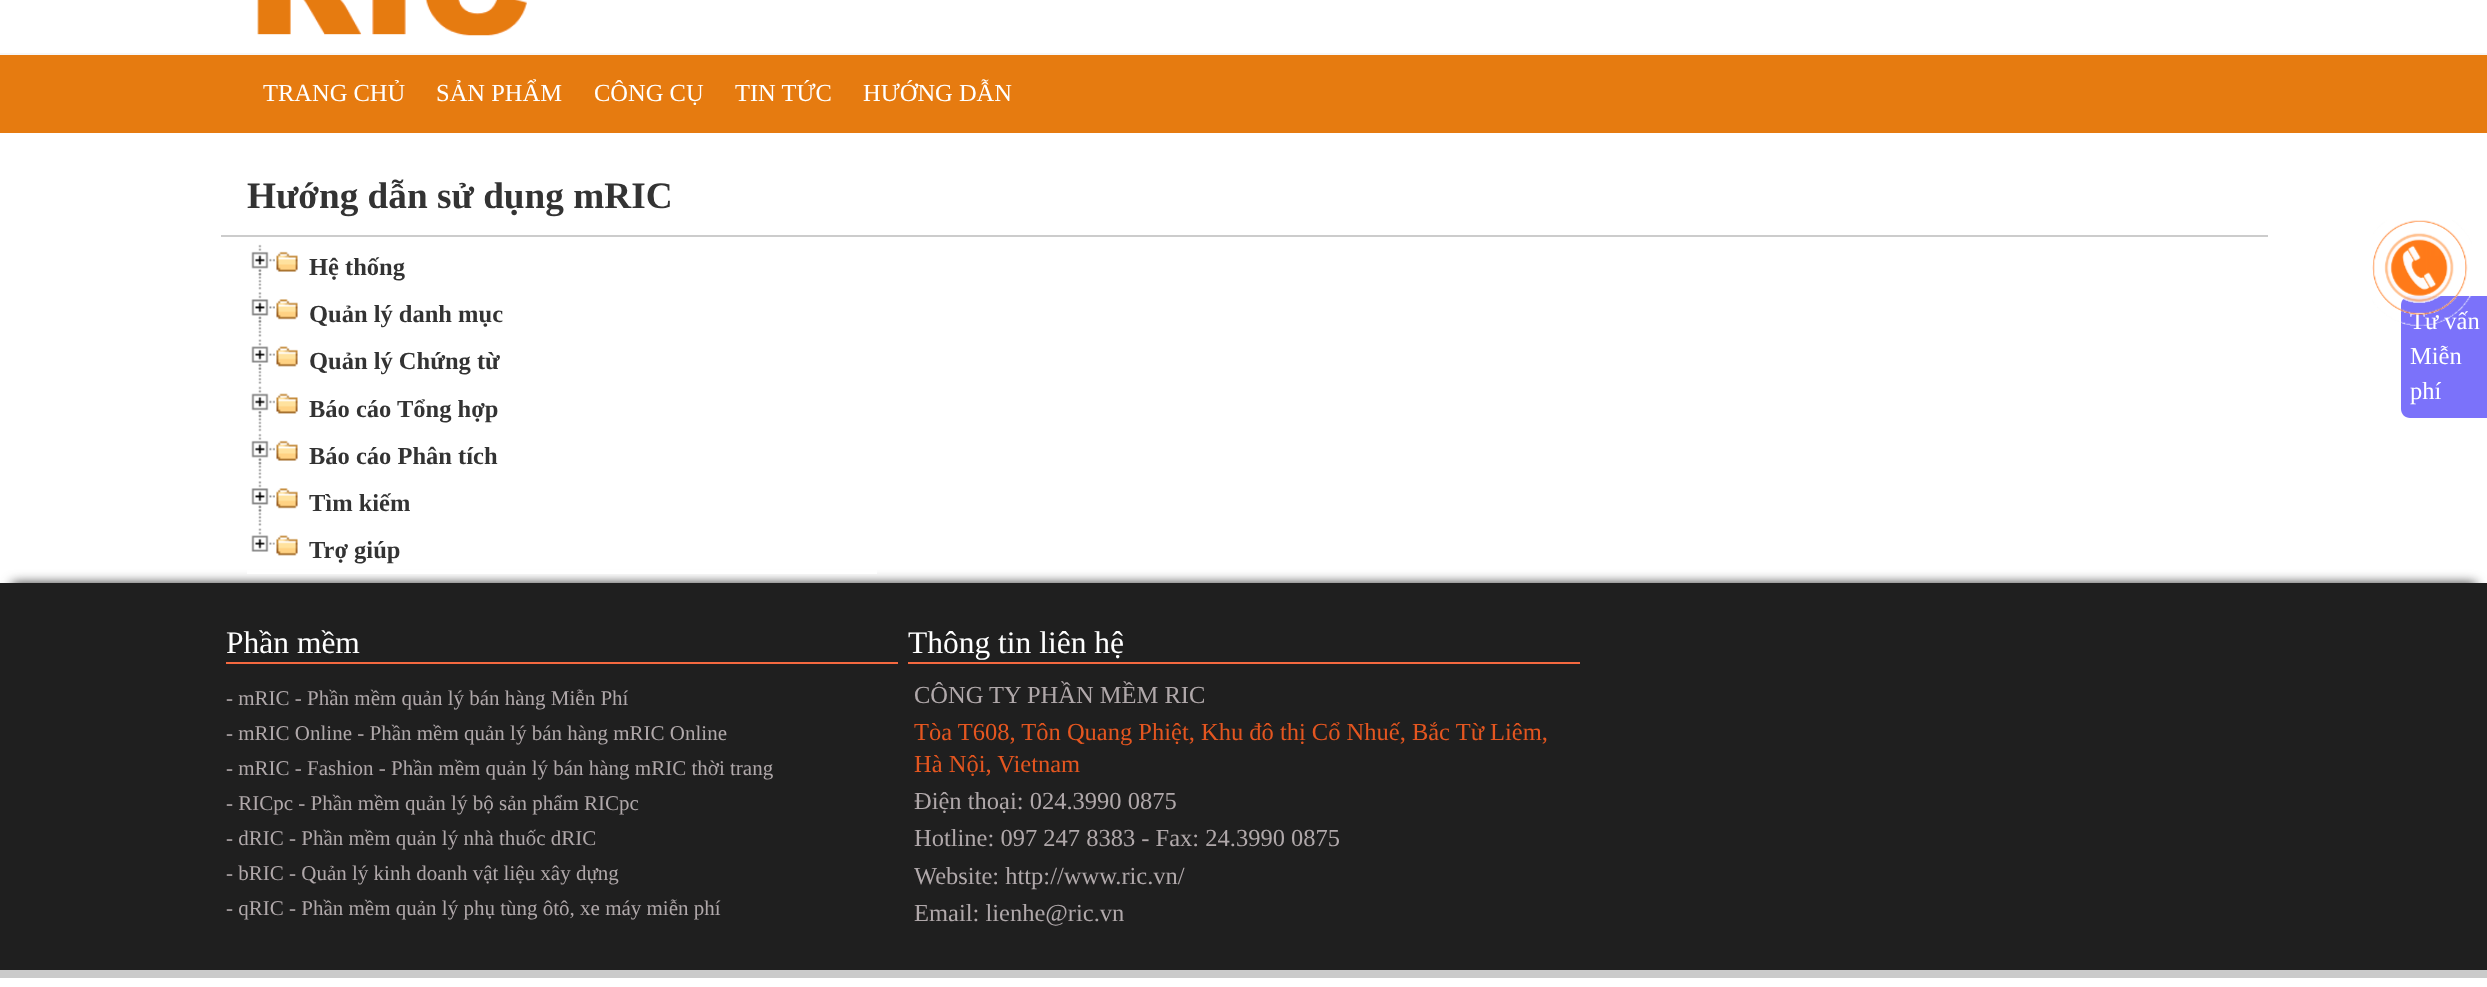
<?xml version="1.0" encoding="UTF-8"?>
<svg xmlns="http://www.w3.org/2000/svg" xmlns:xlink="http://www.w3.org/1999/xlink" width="2487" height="987">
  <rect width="100%" height="100%" fill="#ffffff" />
  <rect y="53" width="2487" height="2" fill="#f7f7f7" />
  <image x="257" y="0" width="270" height="36" xlink:href="image1.png" />
  <rect y="55" width="2487" height="78" fill="#e67b10" />
  <rect x="221" y="235" width="2047" height="2" fill="#cccccc" />
  <rect x="12" y="583" width="2464" height="371" fill="#333333" filter="blur(6px)" />
  <rect x="247" y="570" width="630" height="4" fill="#ffffff" />
  <image x="258" y="244" width="4" height="46" xlink:href="image2.png" />
  <image x="251" y="251" width="24" height="25" xlink:href="image3.png" />
  <image x="276" y="251" width="22" height="21" xlink:href="image4.png" />
  <image x="258" y="292" width="4" height="45" xlink:href="image5.png" />
  <image x="251" y="299" width="24" height="24" xlink:href="image6.png" />
  <image x="276" y="299" width="22" height="21" xlink:href="image7.png" />
  <image x="258" y="339" width="4" height="45" xlink:href="image8.png" />
  <image x="251" y="346" width="24" height="24" xlink:href="image9.png" />
  <image x="276" y="346" width="22" height="21" xlink:href="image10.png" />
  <image x="258" y="386" width="4" height="46" xlink:href="image11.png" />
  <image x="251" y="393" width="24" height="25" xlink:href="image12.png" />
  <image x="276" y="393" width="22" height="21" xlink:href="image13.png" />
  <image x="258" y="433" width="4" height="46" xlink:href="image2.png" />
  <image x="251" y="440" width="24" height="25" xlink:href="image3.png" />
  <image x="276" y="440" width="22" height="21" xlink:href="image4.png" />
  <image x="258" y="481" width="4" height="45" xlink:href="image5.png" />
  <image x="251" y="488" width="24" height="24" xlink:href="image6.png" />
  <image x="276" y="488" width="22" height="21" xlink:href="image7.png" />
  <image x="251" y="528" width="24" height="24" xlink:href="image14.png" />
  <image x="274" y="535" width="24" height="21" xlink:href="image15.png" />
  <path d="M 2410 296 h 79 v 122 h -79 c -5 0 -9 -4 -9 -9 v -104 c 0 -5 4 -9 9 -9 z" fill="#7b72fa" />
  <rect y="583" width="2487" height="387" fill="#1f1f1f" />
  <rect y="970" width="2487" height="8" fill="#cacaca" />
  <rect x="226" y="662" width="672" height="2" fill="#f56940" />
  <rect x="908" y="662" width="672" height="2" fill="#f56940" />
  <text x="263" y="101" style="font-family: Liberation Serif; font-size: 24.5px; fill: #ffffff">TRANG CHỦ</text>
  <text x="436" y="101" style="font-family: Liberation Serif; font-size: 24.5px; fill: #ffffff">SẢN PHẨM</text>
  <text x="594" y="101" style="font-family: Liberation Serif; font-size: 24.5px; fill: #ffffff">CÔNG CỤ</text>
  <text x="735" y="101" style="font-family: Liberation Serif; font-size: 24.5px; fill: #ffffff">TIN TỨC</text>
  <text x="863" y="101" style="font-family: Liberation Serif; font-size: 24.5px; fill: #ffffff">HƯỚNG DẪN</text>
  <text x="247" y="208" style="font-family: Liberation Serif; font-size: 37.25px; font-weight: bold; fill: #333333">Hướng dẫn sử dụng mRIC</text>
  <text x="309" y="275" style="font-family: Liberation Serif; font-size: 24.5px; font-weight: bold; fill: #333333">Hệ thống</text>
  <text x="309" y="322" style="font-family: Liberation Serif; font-size: 24.5px; font-weight: bold; fill: #333333">Quản lý danh mục</text>
  <text x="309" y="369" style="font-family: Liberation Serif; font-size: 24.5px; font-weight: bold; fill: #333333">Quản lý Chứng từ</text>
  <text x="309" y="417" style="font-family: Liberation Serif; font-size: 24.5px; font-weight: bold; fill: #333333">Báo cáo Tổng hợp</text>
  <text x="309" y="464" style="font-family: Liberation Serif; font-size: 24.5px; font-weight: bold; fill: #333333">Báo cáo Phân tích</text>
  <text x="309" y="511" style="font-family: Liberation Serif; font-size: 24.5px; font-weight: bold; fill: #333333">Tìm kiếm</text>
  <text x="309" y="558" style="font-family: Liberation Serif; font-size: 24.5px; font-weight: bold; fill: #333333">Trợ giúp</text>
  <text x="2410" y="329" style="font-family: Liberation Serif; font-size: 24.5px; fill: #ffffff">Tư vấn</text>
  <text x="2410" y="364" style="font-family: Liberation Serif; font-size: 24.5px; fill: #ffffff">Miễn</text>
  <text x="2410" y="399" style="font-family: Liberation Serif; font-size: 24.5px; fill: #ffffff">phí</text>
  <text x="226" y="653" style="font-family: Liberation Serif; font-size: 31.5px; fill: #ffffff">Phần mềm</text>
  <text x="226" y="705" style="font-family: Liberation Serif; font-size: 21px; fill: #b0a8aa">- mRIC - Phần mềm quản lý bán hàng Miễn Phí</text>
  <text x="226" y="740" style="font-family: Liberation Serif; font-size: 21px; fill: #b0a8aa">- mRIC Online - Phần mềm quản lý bán hàng mRIC Online</text>
  <text x="226" y="775" style="font-family: Liberation Serif; font-size: 21px; fill: #b0a8aa">- mRIC - Fashion - Phần mềm quản lý bán hàng mRIC thời trang</text>
  <text x="226" y="810" style="font-family: Liberation Serif; font-size: 21px; fill: #b0a8aa">- RICpc - Phần mềm quản lý bộ sản phẩm RICpc</text>
  <text x="226" y="845" style="font-family: Liberation Serif; font-size: 21px; fill: #b0a8aa">- dRIC - Phần mềm quản lý nhà thuốc dRIC</text>
  <text x="226" y="880" style="font-family: Liberation Serif; font-size: 21px; fill: #b0a8aa">- bRIC - Quản lý kinh doanh vật liệu xây dựng</text>
  <text x="226" y="915" style="font-family: Liberation Serif; font-size: 21px; fill: #b0a8aa">- qRIC - Phần mềm quản lý phụ tùng ôtô, xe máy miễn phí</text>
  <text x="908" y="653" style="font-family: Liberation Serif; font-size: 31.5px; fill: #ffffff">Thông tin liên hệ</text>
  <text x="914" y="703" style="font-family: Liberation Serif; font-size: 24.5px; fill: #b0a8aa">CÔNG TY PHẦN MỀM RIC</text>
  <text x="914" y="740" style="font-family: Liberation Serif; font-size: 24.5px; fill: #e45620">Tòa T608, Tôn Quang Phiệt, Khu đô thị Cổ Nhuế, Bắc Từ Liêm,</text>
  <text x="914" y="772" style="font-family: Liberation Serif; font-size: 24.5px; fill: #e45620">Hà Nội, Vietnam</text>
  <text x="914" y="809" style="font-family: Liberation Serif; font-size: 24.5px; fill: #b0a8aa">Điện thoại: 024.3990 0875</text>
  <text x="914" y="846" style="font-family: Liberation Serif; font-size: 24.5px; fill: #b0a8aa">Hotline: 097 247 8383 - Fax: 24.3990 0875</text>
  <text x="914" y="884" style="font-family: Liberation Serif; font-size: 24.5px; fill: #b0a8aa">Website: http://www.ric.vn/</text>
  <text x="914" y="921" style="font-family: Liberation Serif; font-size: 24.5px; fill: #b0a8aa">Email: lienhe@ric.vn</text>
  <image x="2372" y="220" width="100" height="106" xlink:href="image16.png" />
</svg>
